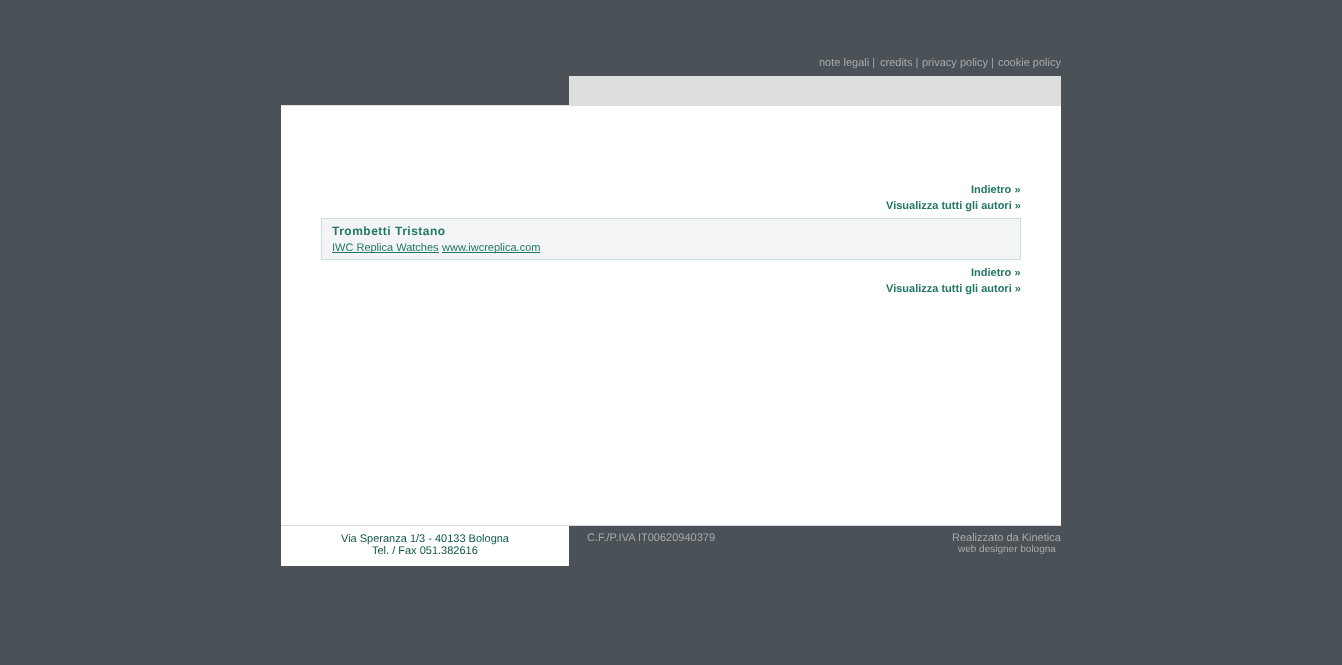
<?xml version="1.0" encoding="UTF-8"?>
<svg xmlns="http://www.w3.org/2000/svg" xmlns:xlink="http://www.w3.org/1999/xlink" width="1342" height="665">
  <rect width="100%" height="100%" fill="#4a5257" />
  <rect x="569" y="76" width="492" height="29" fill="#dddede" />
  <rect x="281" y="106" width="780" height="419" fill="#ffffff" />
  <rect x="281" y="105" width="780" height="1" fill="#dddede" />
  <rect x="281" y="525" width="780" height="1" fill="#dddede" />
  <rect x="321.5" y="218.5" width="699" height="41" fill="#f3f4f5" stroke="#c8e1dc" />
  <rect x="332" y="252" width="107" height="1" fill="#227764" />
  <rect x="442" y="252" width="98" height="1" fill="#227764" />
  <rect x="281" y="526" width="288" height="40" fill="#ffffff" />
  <text x="819" y="66" style="font-family: Liberation Sans; font-size: 11px; fill: #aaaaaa">note legali |</text>
  <text x="880" y="66" style="font-family: Liberation Sans; font-size: 11px; fill: #aaaaaa">credits |</text>
  <text x="922" y="66" style="font-family: Liberation Sans; font-size: 11px; fill: #aaaaaa">privacy policy |</text>
  <text x="998" y="66" style="font-family: Liberation Sans; font-size: 11px; fill: #aaaaaa">cookie policy</text>
  <text x="971" y="193" style="font-family: Liberation Sans; font-size: 11px; font-weight: bold; fill: #227764">Indietro »</text>
  <text x="886" y="209" style="font-family: Liberation Sans; font-size: 11px; font-weight: bold; fill: #227764">Visualizza tutti gli autori »</text>
  <text x="332" y="235" style="font-family: Liberation Sans; font-size: 12px; font-weight: bold; letter-spacing: 0.5px; fill: #227764">Trombetti Tristano</text>
  <text x="332" y="251" style="font-family: Liberation Sans; font-size: 11px; fill: #227764">IWC Replica Watches</text>
  <text x="442" y="251" style="font-family: Liberation Sans; font-size: 11px; fill: #227764">www.iwcreplica.com</text>
  <text x="971" y="276" style="font-family: Liberation Sans; font-size: 11px; font-weight: bold; fill: #227764">Indietro »</text>
  <text x="886" y="292" style="font-family: Liberation Sans; font-size: 11px; font-weight: bold; fill: #227764">Visualizza tutti gli autori »</text>
  <text x="341" y="542" style="font-family: Liberation Sans; font-size: 11px; fill: #105849">Via Speranza 1/3 - 40133 Bologna</text>
  <text x="372" y="554" style="font-family: Liberation Sans; font-size: 11px; fill: #105849">Tel. / Fax 051.382616</text>
  <text x="587" y="541" style="font-family: Liberation Sans; font-size: 11px; fill: #aaaaaa">C.F./P.IVA IT00620940379</text>
  <text x="952" y="541" style="font-family: Liberation Sans; font-size: 11px; fill: #aaaaaa">Realizzato da Kinetica</text>
  <text x="958" y="552" style="font-family: Liberation Sans; font-size: 10px; fill: #aaaaaa">web designer bologna</text>
</svg>
